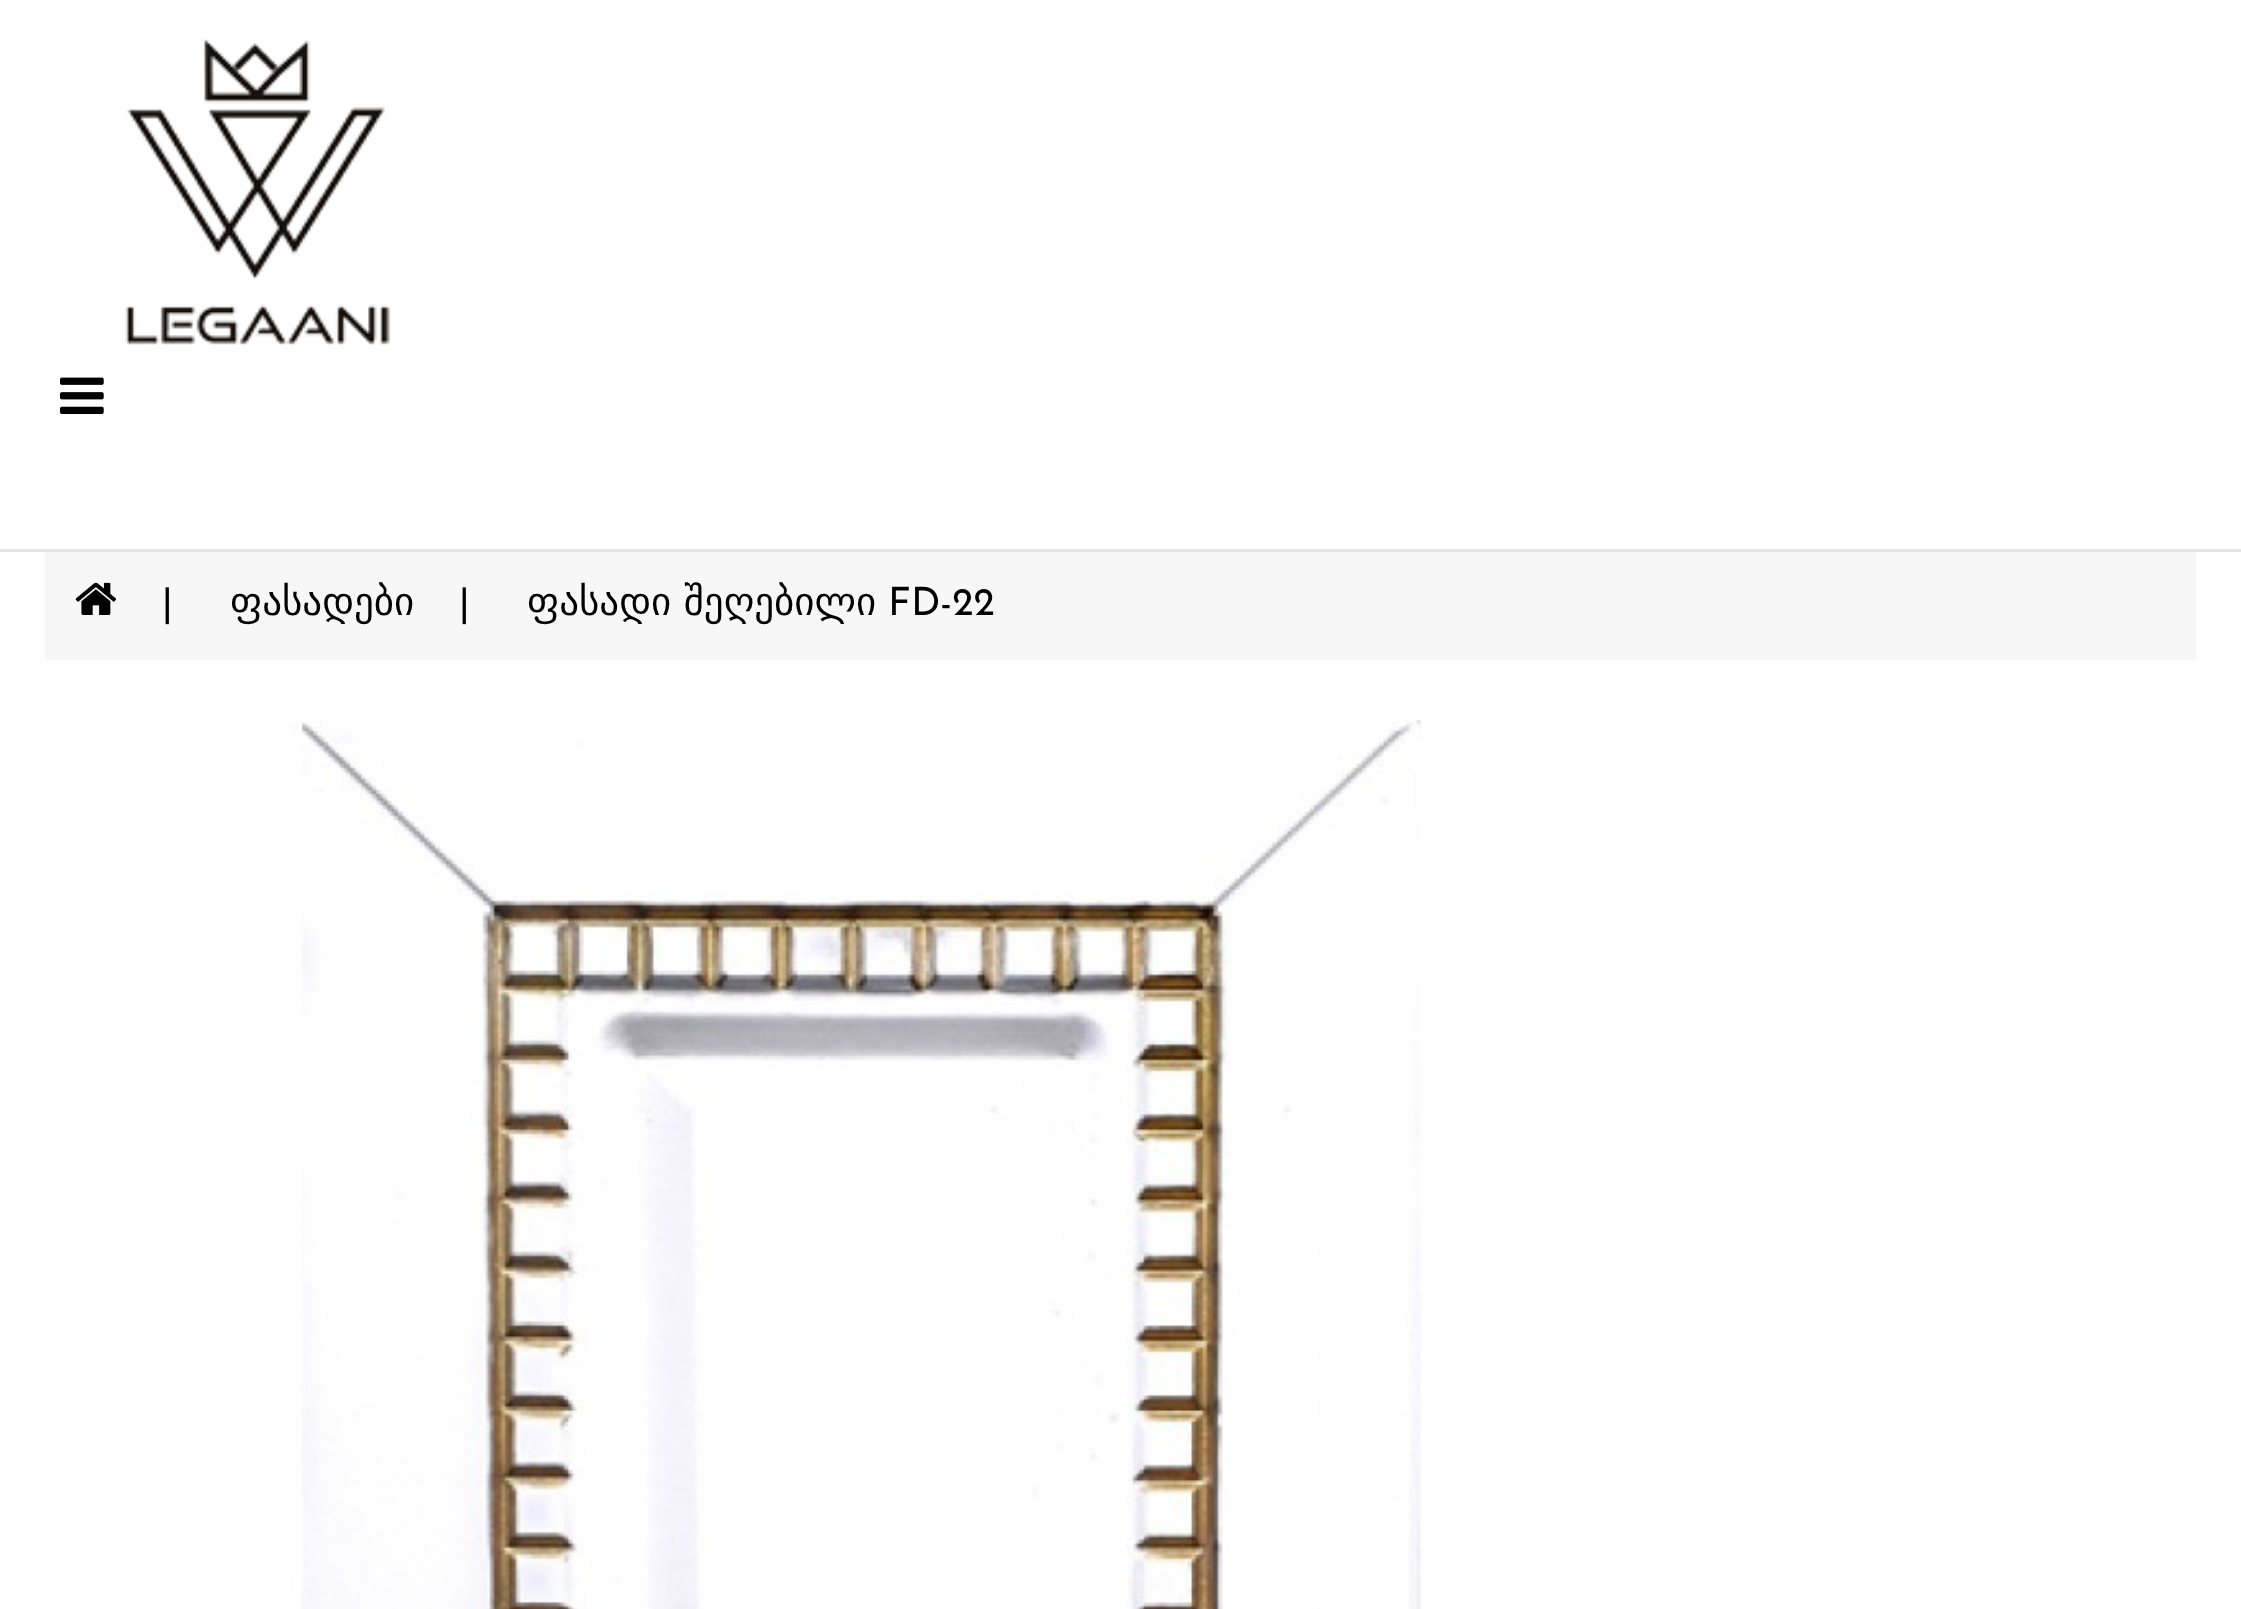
<?xml version="1.0" encoding="UTF-8"?>
<svg xmlns="http://www.w3.org/2000/svg" xmlns:xlink="http://www.w3.org/1999/xlink" width="2241" height="1609">
  <rect width="100%" height="100%" fill="#ffffff" />
  <rect y="549" width="2241" height="3" fill="#e5e5e5" />
  <image x="125" y="38" width="266" height="307" xlink:href="image1.png" />
  <image x="60" y="377" width="44" height="37" xlink:href="image2.png" />
  <rect x="45" y="552" width="2151" height="108" fill="#f7f7f7" />
  <image x="75" y="582" width="42" height="33" xlink:href="image3.png" />
  <image x="291" y="720" width="1131" height="889" xlink:href="image4.png" />
  <text x="162" y="615" style="font-family: Josefin Sans; font-size: 39px; fill: #000000">|</text>
  <text x="230" y="615" style="font-family: DejaVu Sans; font-size: 39px; fill: #000000">ფასადები</text>
  <text x="459" y="615" style="font-family: Josefin Sans; font-size: 39px; fill: #000000">|</text>
  <text x="527" y="615" style="font-family: DejaVu Sans; font-size: 39px; fill: #000000">ფასადი შეღებილი</text>
  <text x="888" y="615" style="font-family: Josefin Sans; font-size: 39px; fill: #000000">FD-22</text>
</svg>
